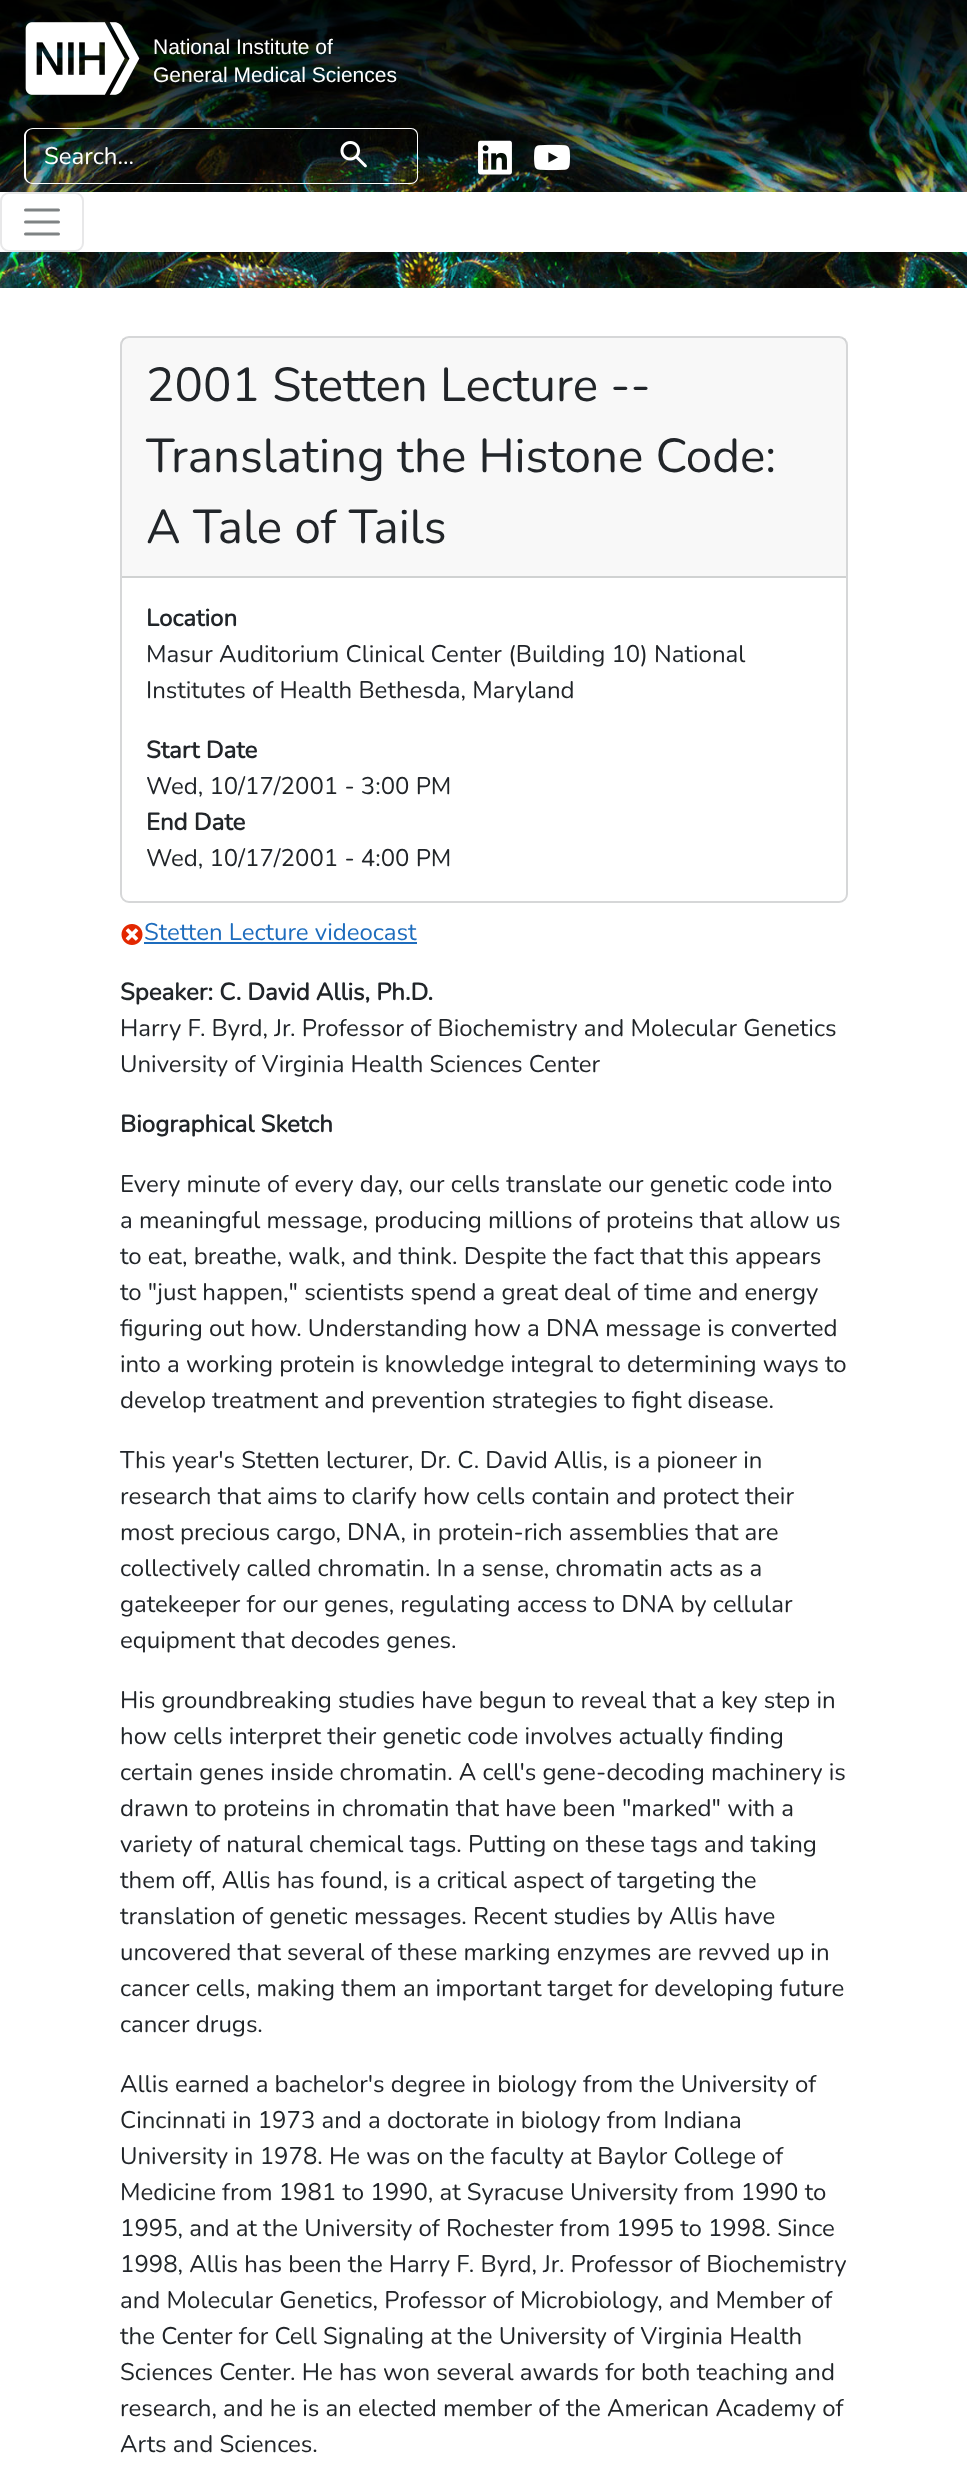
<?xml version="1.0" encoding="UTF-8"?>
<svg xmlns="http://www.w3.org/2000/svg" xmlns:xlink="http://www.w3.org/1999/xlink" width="967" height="2469">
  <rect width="100%" height="100%" fill="#ffffff" />
  <image x="0" y="0" width="967" height="288" xlink:href="image1.png" />
  <image x="25" y="22" width="115" height="73" xlink:href="image2.png" />
  <path d="M 33 128 h 258 v 56 h -258 c -5 0 -9 -4 -9 -8 v -40 c 0 -4 4 -8 9 -8 z m 0 1 h 258 v 54 h -258 c -4 0 -7 -3 -7 -7 v -40 c 0 -4 3 -7 7 -7 z" fill="#ffffff" fill-rule="evenodd" />
  <path d="M 291 128 h 120 c 4 0 7 3 7 7 v 42 c 0 4 -3 7 -7 7 h -120 z m 0 1 h 120 c 3 0 6 3 6 6 v 42 c 0 3 -3 6 -6 6 h -120 z" fill="#ffffff" fill-rule="evenodd" />
  <image x="340" y="141" width="27" height="27" xlink:href="image3.png" />
  <image x="478" y="140" width="34" height="35" xlink:href="image4.png" />
  <image x="534" y="144" width="36" height="27" xlink:href="image5.png" />
  <rect y="192" width="967" height="60" fill="#ffffff" />
  <rect x="1" y="193" width="82" height="58" rx="8" fill="none" stroke="#e8e8e9" stroke-width="2" />
  <path d="M 25.5 210 h 33 m -33 12 h 33 m -33 12 h 33" fill="none" stroke="#7f8384" stroke-width="3" stroke-linecap="round" />
  <rect x="121" y="337" width="726" height="565" rx="8" fill="none" stroke="#d6d7d8" stroke-width="2" />
  <rect x="122" y="338" width="724" height="238" fill="#171d1f" fill-opacity="0.03" />
  <rect x="122" y="576" width="724" height="2" fill="#d0d2d2" />
  <image x="121" y="924" width="22" height="21" xlink:href="image6.png" />
  <rect x="144" y="942" width="273" height="2" fill="#1d6cbd" />
  <text x="153" y="54" style="font-family: Liberation Sans; font-size: 21px; fill: #ffffff">National Institute of</text>
  <text x="153" y="82" style="font-family: Liberation Sans; font-size: 21px; fill: #ffffff">General Medical Sciences</text>
  <text x="44" y="164" style="font-family: Nunito; font-size: 24px; fill: #ffffff">Search...</text>
  <text x="146" y="401" style="font-family: Nunito; font-size: 47.5px; fill: #212529">2001 Stetten Lecture --</text>
  <text x="146" y="472" style="font-family: Nunito; font-size: 47.5px; fill: #212529">Translating the Histone Code:</text>
  <text x="146" y="543" style="font-family: Nunito; font-size: 47.5px; fill: #212529">A Tale of Tails</text>
  <text x="146" y="626" style="font-family: Nunito; font-size: 24px; font-weight: bold; fill: #212529">Location</text>
  <text x="146" y="662" style="font-family: Nunito; font-size: 24px; fill: #212529">Masur Auditorium Clinical Center (Building 10) National</text>
  <text x="146" y="698" style="font-family: Nunito; font-size: 24px; fill: #212529">Institutes of Health Bethesda, Maryland</text>
  <text x="146" y="758" style="font-family: Nunito; font-size: 24px; font-weight: bold; fill: #212529">Start Date</text>
  <text x="146" y="794" style="font-family: Nunito; font-size: 24px; fill: #212529">Wed, 10/17/2001 - 3:00 PM</text>
  <text x="146" y="830" style="font-family: Nunito; font-size: 24px; font-weight: bold; fill: #212529">End Date</text>
  <text x="146" y="866" style="font-family: Nunito; font-size: 24px; fill: #212529">Wed, 10/17/2001 - 4:00 PM</text>
  <text x="144" y="940" style="font-family: Nunito; font-size: 24px; fill: #1d6cbd">Stetten Lecture videocast</text>
  <text x="120" y="1000" style="font-family: Nunito; font-size: 24px; font-weight: bold; fill: #212529">Speaker: C. David Allis, Ph.D.</text>
  <text x="120" y="1036" style="font-family: Nunito; font-size: 24px; fill: #212529">Harry F. Byrd, Jr. Professor of Biochemistry and Molecular Genetics</text>
  <text x="120" y="1072" style="font-family: Nunito; font-size: 24px; fill: #212529">University of Virginia Health Sciences Center</text>
  <text x="120" y="1132" style="font-family: Nunito; font-size: 24px; font-weight: bold; fill: #212529">Biographical Sketch</text>
  <text x="120" y="1192" style="font-family: Nunito; font-size: 24px; fill: #212529">Every minute of every day, our cells translate our genetic code into</text>
  <text x="120" y="1228" style="font-family: Nunito; font-size: 24px; fill: #212529">a meaningful message, producing millions of proteins that allow us</text>
  <text x="120" y="1264" style="font-family: Nunito; font-size: 24px; fill: #212529">to eat, breathe, walk, and think. Despite the fact that this appears</text>
  <text x="120" y="1300" style="font-family: Nunito; font-size: 24px; fill: #212529">to "just happen," scientists spend a great deal of time and energy</text>
  <text x="120" y="1336" style="font-family: Nunito; font-size: 24px; fill: #212529">figuring out how. Understanding how a DNA message is converted</text>
  <text x="120" y="1372" style="font-family: Nunito; font-size: 24px; fill: #212529">into a working protein is knowledge integral to determining ways to</text>
  <text x="120" y="1408" style="font-family: Nunito; font-size: 24px; fill: #212529">develop treatment and prevention strategies to fight disease.</text>
  <text x="120" y="1468" style="font-family: Nunito; font-size: 24px; fill: #212529">This year's Stetten lecturer, Dr. C. David Allis, is a pioneer in</text>
  <text x="120" y="1504" style="font-family: Nunito; font-size: 24px; fill: #212529">research that aims to clarify how cells contain and protect their</text>
  <text x="120" y="1540" style="font-family: Nunito; font-size: 24px; fill: #212529">most precious cargo, DNA, in protein-rich assemblies that are</text>
  <text x="120" y="1576" style="font-family: Nunito; font-size: 24px; fill: #212529">collectively called chromatin. In a sense, chromatin acts as a</text>
  <text x="120" y="1612" style="font-family: Nunito; font-size: 24px; fill: #212529">gatekeeper for our genes, regulating access to DNA by cellular</text>
  <text x="120" y="1648" style="font-family: Nunito; font-size: 24px; fill: #212529">equipment that decodes genes.</text>
  <text x="120" y="1708" style="font-family: Nunito; font-size: 24px; fill: #212529">His groundbreaking studies have begun to reveal that a key step in</text>
  <text x="120" y="1744" style="font-family: Nunito; font-size: 24px; fill: #212529">how cells interpret their genetic code involves actually finding</text>
  <text x="120" y="1780" style="font-family: Nunito; font-size: 24px; fill: #212529">certain genes inside chromatin. A cell's gene-decoding machinery is</text>
  <text x="120" y="1816" style="font-family: Nunito; font-size: 24px; fill: #212529">drawn to proteins in chromatin that have been "marked" with a</text>
  <text x="120" y="1852" style="font-family: Nunito; font-size: 24px; fill: #212529">variety of natural chemical tags. Putting on these tags and taking</text>
  <text x="120" y="1888" style="font-family: Nunito; font-size: 24px; fill: #212529">them off, Allis has found, is a critical aspect of targeting the</text>
  <text x="120" y="1924" style="font-family: Nunito; font-size: 24px; fill: #212529">translation of genetic messages. Recent studies by Allis have</text>
  <text x="120" y="1960" style="font-family: Nunito; font-size: 24px; fill: #212529">uncovered that several of these marking enzymes are revved up in</text>
  <text x="120" y="1996" style="font-family: Nunito; font-size: 24px; fill: #212529">cancer cells, making them an important target for developing future</text>
  <text x="120" y="2032" style="font-family: Nunito; font-size: 24px; fill: #212529">cancer drugs.</text>
  <text x="120" y="2092" style="font-family: Nunito; font-size: 24px; fill: #212529">Allis earned a bachelor's degree in biology from the University of</text>
  <text x="120" y="2128" style="font-family: Nunito; font-size: 24px; fill: #212529">Cincinnati in 1973 and a doctorate in biology from Indiana</text>
  <text x="120" y="2164" style="font-family: Nunito; font-size: 24px; fill: #212529">University in 1978. He was on the faculty at Baylor College of</text>
  <text x="120" y="2200" style="font-family: Nunito; font-size: 24px; fill: #212529">Medicine from 1981 to 1990, at Syracuse University from 1990 to</text>
  <text x="120" y="2236" style="font-family: Nunito; font-size: 24px; fill: #212529">1995, and at the University of Rochester from 1995 to 1998. Since</text>
  <text x="120" y="2272" style="font-family: Nunito; font-size: 24px; fill: #212529">1998, Allis has been the Harry F. Byrd, Jr. Professor of Biochemistry</text>
  <text x="120" y="2308" style="font-family: Nunito; font-size: 24px; fill: #212529">and Molecular Genetics, Professor of Microbiology, and Member of</text>
  <text x="120" y="2344" style="font-family: Nunito; font-size: 24px; fill: #212529">the Center for Cell Signaling at the University of Virginia Health</text>
  <text x="120" y="2380" style="font-family: Nunito; font-size: 24px; fill: #212529">Sciences Center. He has won several awards for both teaching and</text>
  <text x="120" y="2416" style="font-family: Nunito; font-size: 24px; fill: #212529">research, and he is an elected member of the American Academy of</text>
  <text x="120" y="2452" style="font-family: Nunito; font-size: 24px; fill: #212529">Arts and Sciences.</text>
</svg>
